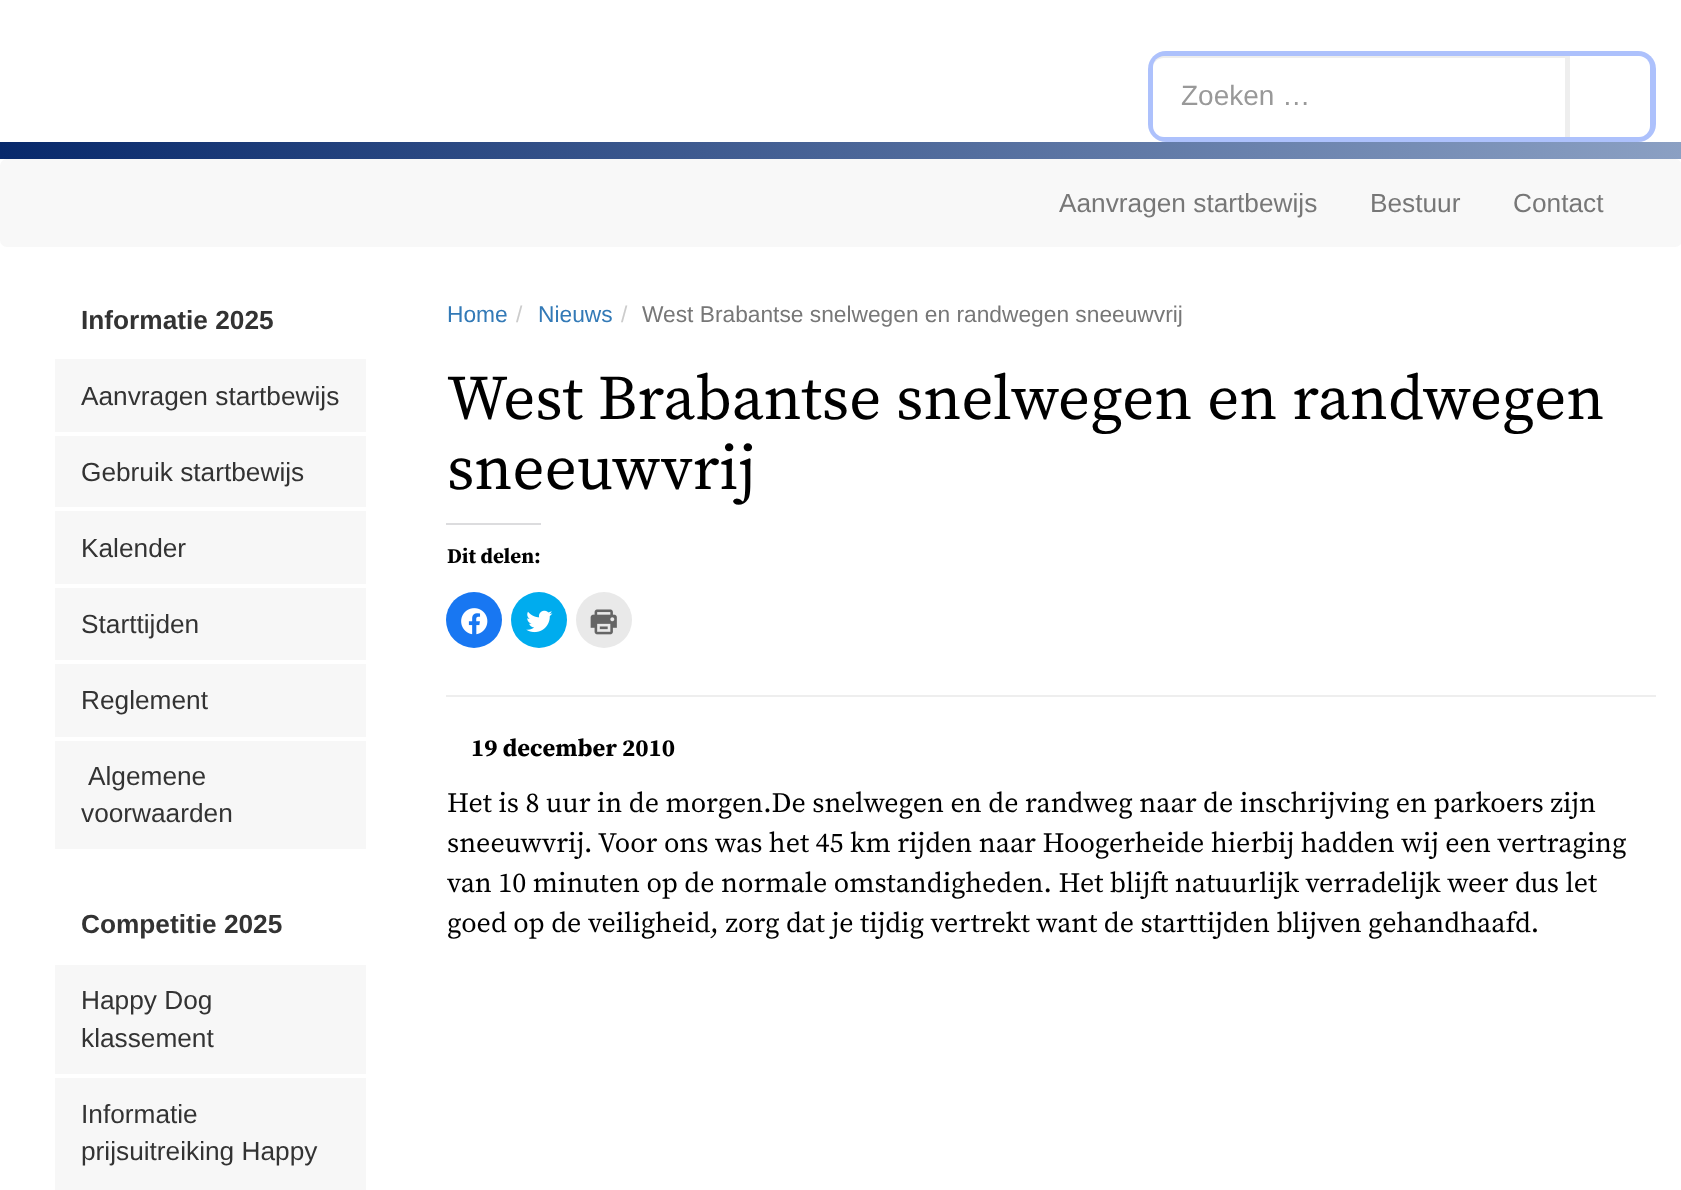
<?xml version="1.0" encoding="UTF-8"?>
<svg xmlns="http://www.w3.org/2000/svg" xmlns:xlink="http://www.w3.org/1999/xlink" width="1681" height="1190">
  <defs>
    <linearGradient id="g1" gradientUnits="userSpaceOnUse" x1="0" y1="151" x2="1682" y2="150"><stop offset="0" stop-color="#08296b" /><stop offset="1" stop-color="#8ba0c3" /></linearGradient>
  </defs>
  <rect width="100%" height="100%" fill="#ffffff" />
  <rect x="1148" y="51" width="508" height="91" rx="18" fill="#adc1fc" />
  <path d="M 1164 56 h 402 v 81 h -402 c -6 0 -11 -5 -11 -11 v -59 c 0 -6 5 -11 11 -11 z" fill="#ffffff" />
  <path d="M 1164 58 h 402 v -2 h -402 c -7 0 -11 6 -11 12 c 0 -6 5 -10 11 -10 z" fill="#000000" fill-opacity="0.07" />
  <path d="M 1570 56 h 69 c 6 0 11 5 11 11 v 59 c 0 6 -5 11 -11 11 h -69 z" fill="#ffffff" />
  <rect x="1565" y="56" width="5" height="81" fill="#eeeeee" />
  <rect y="142" width="1681" height="17" fill="url(#g1)" />
  <rect y="159" width="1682" height="88" rx="7" fill="#f8f8f8" />
  <rect x="55" y="359" width="311" height="73" fill="#f7f7f7" />
  <rect x="55" y="436" width="311" height="71" fill="#f7f7f7" />
  <rect x="55" y="511" width="311" height="73" fill="#f7f7f7" />
  <rect x="55" y="588" width="311" height="72" fill="#f7f7f7" />
  <rect x="55" y="664" width="311" height="73" fill="#f7f7f7" />
  <rect x="55" y="741" width="311" height="108" fill="#f7f7f7" />
  <rect x="55" y="965" width="311" height="109" fill="#f7f7f7" />
  <rect x="55" y="1078" width="311" height="112" fill="#f7f7f7" />
  <rect x="446" y="523" width="95" height="2" fill="#dcdcde" />
  <circle cx="474" cy="620" r="28" fill="#1877f2" />
  <image x="461" y="608" width="27" height="27" xlink:href="image1.png" />
  <circle cx="539" cy="620" r="28" fill="#00acee" />
  <image x="526" y="610" width="27" height="23" xlink:href="image2.png" />
  <circle cx="604" cy="620" r="28" fill="#e9e9e9" />
  <image x="590" y="609" width="27" height="26" xlink:href="image3.png" />
  <rect x="446" y="695" width="1210" height="2" fill="#eeeeee" />
  <text x="1181" y="105" style="font-family: Liberation Sans; font-size: 28px; fill: #999999">Zoeken …</text>
  <text x="1059" y="212" style="font-family: Liberation Sans; font-size: 26.25px; fill: #777777">Aanvragen startbewijs</text>
  <text x="1370" y="212" style="font-family: Liberation Sans; font-size: 26.25px; fill: #777777">Bestuur</text>
  <text x="1513" y="212" style="font-family: Liberation Sans; font-size: 26.25px; fill: #777777">Contact</text>
  <text x="81" y="329" style="font-family: Liberation Sans; font-size: 26.25px; font-weight: bold; fill: #333333">Informatie 2025</text>
  <text x="81" y="405" style="font-family: Liberation Sans; font-size: 26.25px; fill: #333333">Aanvragen startbewijs</text>
  <text x="81" y="481" style="font-family: Liberation Sans; font-size: 26.25px; fill: #333333">Gebruik startbewijs</text>
  <text x="81" y="557" style="font-family: Liberation Sans; font-size: 26.25px; fill: #333333">Kalender</text>
  <text x="81" y="633" style="font-family: Liberation Sans; font-size: 26.25px; fill: #333333">Starttijden</text>
  <text x="81" y="709" style="font-family: Liberation Sans; font-size: 26.25px; fill: #333333">Reglement</text>
  <text x="88" y="785" style="font-family: Liberation Sans; font-size: 26.25px; fill: #333333">Algemene</text>
  <text x="81" y="822" style="font-family: Liberation Sans; font-size: 26.25px; fill: #333333">voorwaarden</text>
  <text x="81" y="933" style="font-family: Liberation Sans; font-size: 26.25px; font-weight: bold; fill: #333333">Competitie 2025</text>
  <text x="81" y="1009" style="font-family: Liberation Sans; font-size: 26.25px; fill: #333333">Happy Dog</text>
  <text x="81" y="1047" style="font-family: Liberation Sans; font-size: 26.25px; fill: #333333">klassement</text>
  <text x="81" y="1123" style="font-family: Liberation Sans; font-size: 26.25px; fill: #333333">Informatie</text>
  <text x="81" y="1160" style="font-family: Liberation Sans; font-size: 26.25px; fill: #333333">prijsuitreiking Happy</text>
  <text x="447" y="322" style="font-family: Liberation Sans; font-size: 22.75px; fill: #337ab7">Home</text>
  <text x="516" y="322" style="font-family: Liberation Sans; font-size: 22.75px; fill: #cccccc">/</text>
  <text x="538" y="322" style="font-family: Liberation Sans; font-size: 22.75px; fill: #337ab7">Nieuws</text>
  <text x="621" y="322" style="font-family: Liberation Sans; font-size: 22.75px; fill: #cccccc">/</text>
  <text x="642" y="322" style="font-family: Liberation Sans; font-size: 22.75px; fill: #777777">West Brabantse snelwegen en randwegen sneeuwvrij</text>
  <text x="447" y="419" style="font-family: Source Serif Pro; font-size: 63px; fill: #000000">West Brabantse snelwegen en randwegen</text>
  <text x="447" y="489" style="font-family: Source Serif Pro; font-size: 63px; fill: #000000">sneeuwvrij</text>
  <text x="447" y="563" style="font-family: Source Serif Pro; font-size: 21px; font-weight: bold; fill: #000000">Dit delen:</text>
  <text x="471" y="756" style="font-family: Source Serif Pro; font-size: 24.5px; font-weight: bold; fill: #000000">19 december 2010</text>
  <text x="447" y="812" style="font-family: Source Serif Pro; font-size: 28px; fill: #000000">Het is 8 uur in de morgen.De snelwegen en de randweg naar de inschrijving en parkoers zijn</text>
  <text x="447" y="852" style="font-family: Source Serif Pro; font-size: 28px; fill: #000000">sneeuwvrij. Voor ons was het 45 km rijden naar Hoogerheide hierbij hadden wij een vertraging</text>
  <text x="447" y="892" style="font-family: Source Serif Pro; font-size: 28px; fill: #000000">van 10 minuten op de normale omstandigheden. Het blijft natuurlijk verradelijk weer dus let</text>
  <text x="447" y="932" style="font-family: Source Serif Pro; font-size: 28px; fill: #000000">goed op de veiligheid, zorg dat je tijdig vertrekt want de starttijden blijven gehandhaafd.</text>
</svg>
